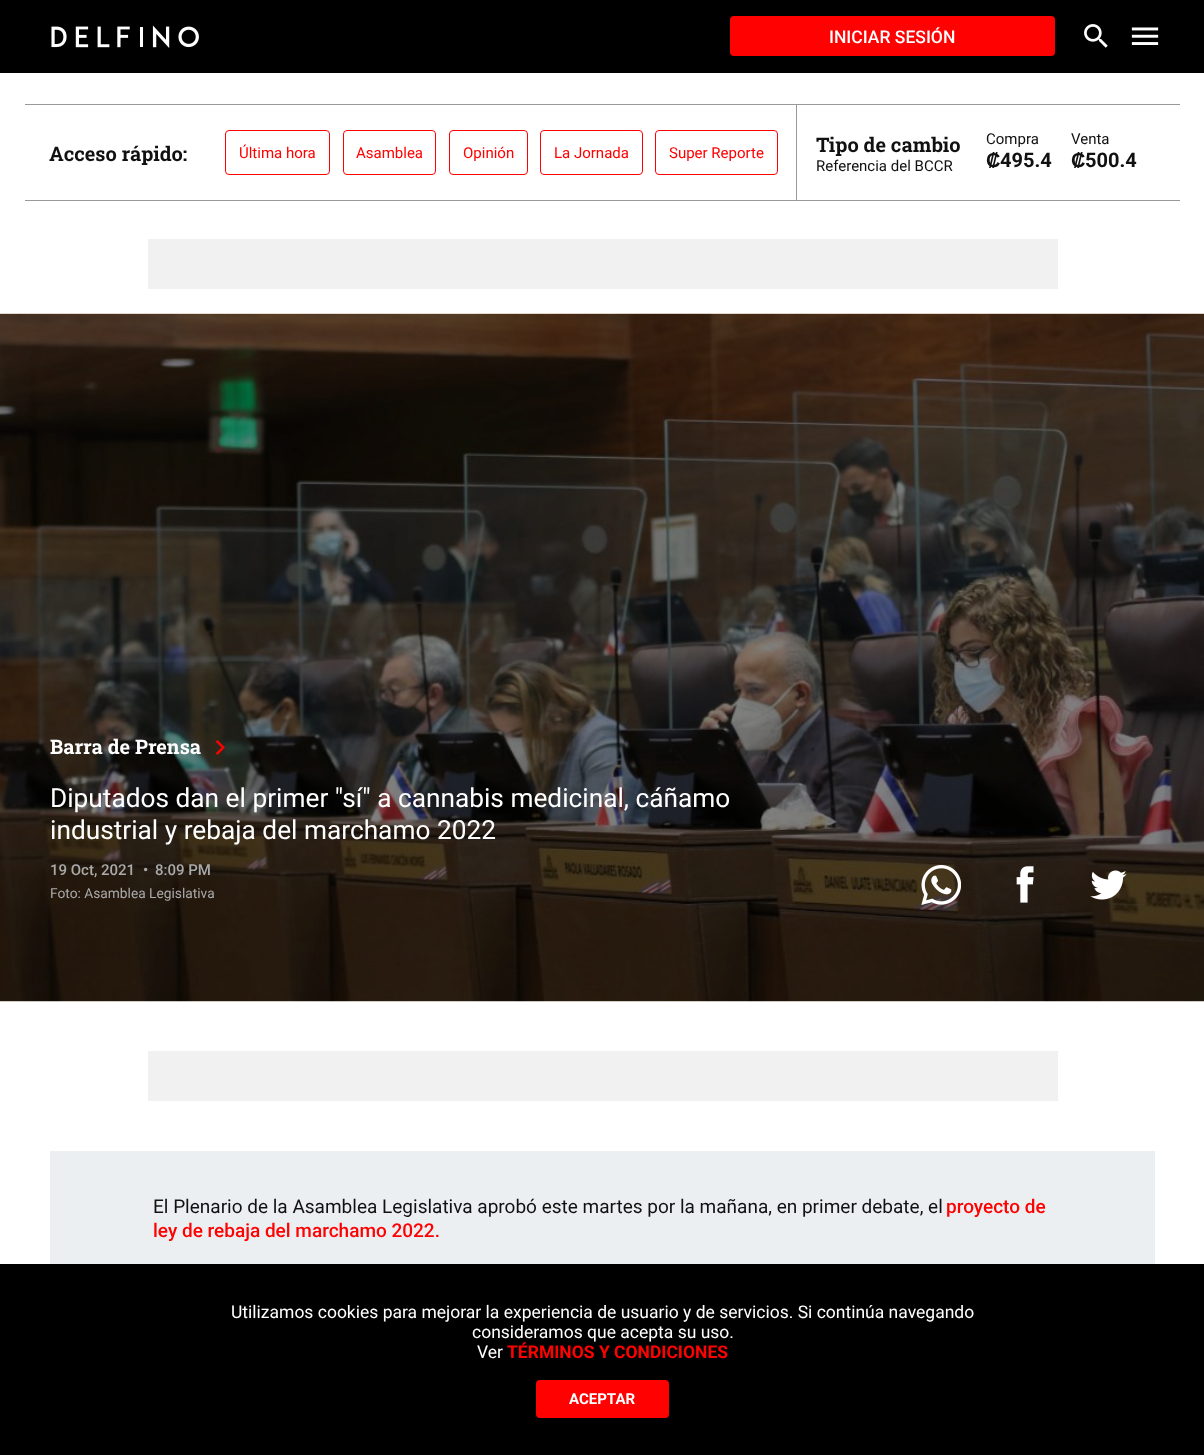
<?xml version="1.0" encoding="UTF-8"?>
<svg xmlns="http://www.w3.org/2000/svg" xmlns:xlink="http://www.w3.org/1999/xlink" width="1204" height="1455">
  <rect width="100%" height="100%" fill="#ffffff" />
  <rect width="1204" height="73" fill="#000000" />
  <image x="51" y="25" width="148" height="23" xlink:href="image1.png" />
  <rect x="731.5" y="17.5" width="322" height="37" rx="2.5" fill="#ff0100" stroke="#ff0100" stroke-width="3" />
  <image x="1084" y="24" width="24" height="24" xlink:href="image2.png" />
  <image x="1131" y="27" width="28" height="18" xlink:href="image3.png" />
  <rect x="25" y="104" width="1155" height="1" fill="#999999" />
  <rect x="25" y="200" width="1155" height="1" fill="#999999" />
  <rect x="796" y="105" width="1" height="95" fill="#999999" />
  <rect x="225.5" y="130.5" width="104" height="44" rx="3.5" fill="none" stroke="#ff0100" />
  <rect x="343.5" y="130.5" width="92" height="44" rx="3.5" fill="none" stroke="#ff0100" />
  <rect x="449.5" y="130.5" width="78" height="44" rx="3.5" fill="none" stroke="#ff0100" />
  <rect x="540.5" y="130.5" width="102" height="44" rx="3.5" fill="none" stroke="#ff0100" />
  <rect x="655.5" y="130.5" width="122" height="44" rx="3.5" fill="none" stroke="#ff0100" />
  <rect x="148" y="239" width="910" height="50" fill="#f1f1f1" />
  <image x="0" y="313" width="1204" height="689" xlink:href="image4.png" />
  <image x="215" y="740" width="10" height="15" xlink:href="image5.png" />
  <image x="921" y="865" width="40" height="40" xlink:href="image6.png" />
  <image x="1016" y="866" width="18" height="37" xlink:href="image7.png" />
  <image x="1090" y="870" width="37" height="30" xlink:href="image8.png" />
  <rect x="148" y="1051" width="910" height="50" fill="#f1f1f1" />
  <rect x="50" y="1151" width="1105" height="113" fill="#eceff1" />
  <rect y="1264" width="1204" height="191" fill="#000000" />
  <rect x="537.5" y="1381.5" width="130" height="35" rx="2.5" fill="#ff0100" stroke="#ff0100" stroke-width="3" />
  <text x="829" y="43" style="font-family: Roboto; font-size: 17.5px; font-weight: 500; fill: #ffffff">INICIAR SESIÓN</text>
  <text x="49" y="161" style="font-family: Roboto Slab; font-size: 20px; font-weight: bold; fill: #111111">Acceso rápido:</text>
  <text x="239" y="158" style="font-family: Roboto; font-size: 15px; fill: #ff0100">Última hora</text>
  <text x="356" y="158" style="font-family: Roboto; font-size: 15px; fill: #ff0100">Asamblea</text>
  <text x="463" y="158" style="font-family: Roboto; font-size: 15px; fill: #ff0100">Opinión</text>
  <text x="554" y="158" style="font-family: Roboto; font-size: 15px; fill: #ff0100">La Jornada</text>
  <text x="669" y="158" style="font-family: Roboto; font-size: 15px; fill: #ff0100">Super Reporte</text>
  <text x="816" y="152" style="font-family: Roboto Slab; font-size: 20px; font-weight: bold; fill: #111111">Tipo de cambio</text>
  <text x="816" y="171" style="font-family: Roboto; font-size: 15px; fill: #111111">Referencia del BCCR</text>
  <text x="986" y="144" style="font-family: Roboto; font-size: 15px; fill: #111111">Compra</text>
  <text x="986" y="167" style="font-family: Liberation Sans; font-size: 20px; font-weight: bold; fill: #111111">₡</text>
  <text x="1000" y="167" style="font-family: Roboto; font-size: 20px; font-weight: bold; fill: #111111">495.4</text>
  <text x="1071" y="144" style="font-family: Roboto; font-size: 15px; fill: #111111">Venta</text>
  <text x="1071" y="167" style="font-family: Liberation Sans; font-size: 20px; font-weight: bold; fill: #111111">₡</text>
  <text x="1085" y="167" style="font-family: Roboto; font-size: 20px; font-weight: bold; fill: #111111">500.4</text>
  <text x="50" y="754" style="font-family: Roboto Slab; font-size: 20px; font-weight: bold; fill: #ffffff">Barra de Prensa</text>
  <text x="50" y="807" style="font-family: Roboto; font-size: 26.25px; fill: #ffffff">Diputados dan el primer "sí" a cannabis medicinal, cáñamo</text>
  <text x="50" y="839" style="font-family: Roboto; font-size: 26.25px; fill: #ffffff">industrial y rebaja del marchamo 2022</text>
  <text x="50" y="875" style="font-family: Roboto; font-size: 15px; font-weight: 500; fill: #aaaaaa">19 Oct, 2021</text>
  <text x="143" y="875" style="font-family: Roboto; font-size: 15px; font-weight: 500; fill: #aaaaaa">•</text>
  <text x="155" y="875" style="font-family: Roboto; font-size: 15px; font-weight: 500; fill: #aaaaaa">8:09 PM</text>
  <text x="50" y="898" style="font-family: Roboto; font-size: 13.75px; fill: #aaaaaa">Foto: Asamblea Legislativa</text>
  <text x="153" y="1213" style="font-family: Roboto; font-size: 19px; fill: #111111">El Plenario de la Asamblea Legislativa aprobó este martes por la mañana, en primer debate, el</text>
  <text x="946" y="1213" style="font-family: Roboto; font-size: 19px; font-weight: 500; fill: #ff0100">proyecto de</text>
  <text x="153" y="1237" style="font-family: Roboto; font-size: 19px; font-weight: 500; fill: #ff0100">ley de rebaja del marchamo 2022.</text>
  <text x="231" y="1318" style="font-family: Roboto; font-size: 17.5px; fill: #ffffff">Utilizamos cookies para mejorar la experiencia de usuario y de servicios. Si continúa navegando</text>
  <text x="472" y="1338" style="font-family: Roboto; font-size: 17.5px; fill: #ffffff">consideramos que acepta su uso.</text>
  <text x="477" y="1358" style="font-family: Roboto; font-size: 17.5px; fill: #ffffff">Ver</text>
  <text x="507" y="1358" style="font-family: Roboto; font-size: 17.5px; font-weight: bold; fill: #ff0100">TÉRMINOS Y CONDICIONES</text>
  <text x="569" y="1404" style="font-family: Roboto; font-size: 15px; font-weight: bold; fill: #ffffff">ACEPTAR</text>
</svg>
